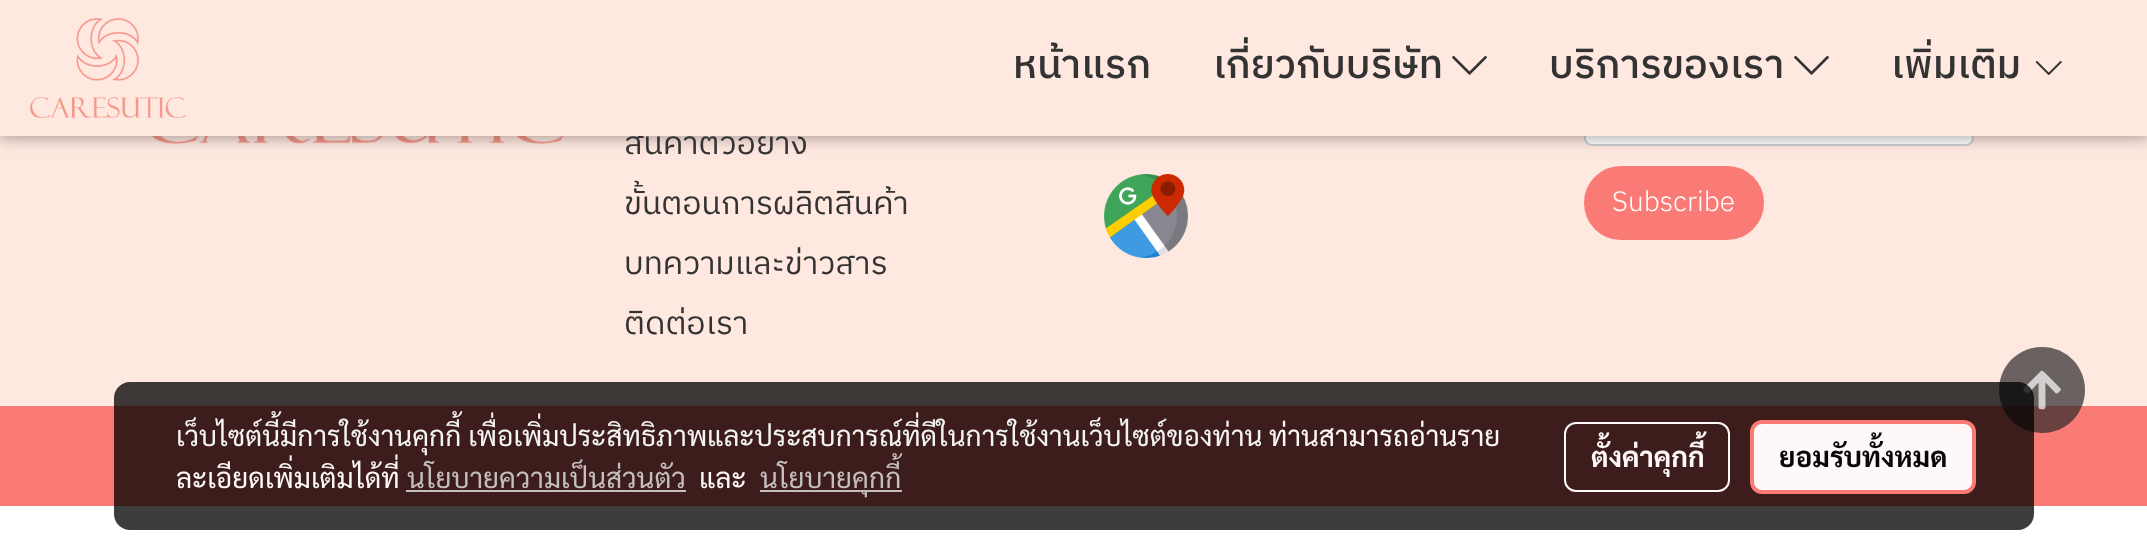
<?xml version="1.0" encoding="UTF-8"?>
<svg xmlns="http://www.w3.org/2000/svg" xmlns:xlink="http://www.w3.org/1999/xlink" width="2147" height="545">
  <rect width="100%" height="100%" fill="#ffffff" />
  <rect y="136" width="2147" height="270" fill="#ffe8e0" />
  <image x="152" y="136" width="412" height="8" xlink:href="image4.png" />
  <rect x="1585" y="71" width="388" height="74" rx="7" fill="#ffffff" stroke="#cdced2" stroke-width="2" />
  <rect x="1586" y="168" width="176" height="70" rx="35" fill="#fa7b75" stroke="#fa7b75" stroke-width="4" />
  <rect y="4" width="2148" height="136" fill="#000000" fill-opacity="0.12" filter="blur(10px)" />
  <rect y="4" width="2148" height="136" fill="#000000" fill-opacity="0.16" filter="blur(5px)" />
  <image x="1104" y="174" width="84" height="84" xlink:href="image5.png" />
  <rect y="406" width="2147" height="100" fill="#fa7b75" />
  <path d="M 2042 347 c -24 0 -43 19 -43 43 c 0 24 19 43 43 43 c 24 0 43 -19 43 -43 c 0 -24 -19 -43 -43 -43 z" fill="#2b2a2a" fill-opacity="0.7" />
  <image x="2023" y="370" width="38" height="40" xlink:href="image6.png" />
  <rect x="114" y="382" width="1920" height="148" rx="16" fill="#000000" fill-opacity="0.76" />
  <rect x="406" y="490" width="280" height="2" fill="#c5bebe" />
  <rect x="760" y="490" width="142" height="2" fill="#c5bebe" />
  <rect x="1565" y="423" width="164" height="68" rx="11" fill="none" stroke="#fff8f8" stroke-width="2" />
  <rect x="1752" y="422" width="222" height="70" rx="10" fill="#fff8f8" stroke="#fa7b75" stroke-width="4" />
  <text x="624" y="154" style="font-family: IBM Plex Sans Thai; font-size: 32px; fill: #333333">สินค้าตัวอย่าง</text>
  <rect width="2147" height="136" fill="#ffe8e0" />
  <image x="2035" y="61" width="27" height="14" xlink:href="image3.png" />
  <text x="1891" y="78" style="font-family: IBM Plex Sans Thai; font-size: 40px; font-weight: 500; fill: #333333">เพิ่มเติม</text>
  <image x="1794" y="55" width="35" height="20" xlink:href="image2.png" />
  <text x="1549" y="78" style="font-family: IBM Plex Sans Thai; font-size: 40px; font-weight: 500; fill: #333333">บริการของเรา</text>
  <image x="1452" y="55" width="35" height="20" xlink:href="image2.png" />
  <text x="1213" y="78" style="font-family: IBM Plex Sans Thai; font-size: 40px; font-weight: 500; fill: #333333">เกี่ยวกับบริษัท</text>
  <text x="1013" y="78" style="font-family: IBM Plex Sans Thai; font-size: 40px; font-weight: 500; fill: #333333">หน้าแรก</text>
  <image x="30" y="18" width="156" height="100" xlink:href="image1.png" />
  <text x="624" y="214" style="font-family: IBM Plex Sans Thai; font-size: 32px; fill: #333333">ขั้นตอนการผลิตสินค้า</text>
  <text x="624" y="274" style="font-family: IBM Plex Sans Thai; font-size: 32px; fill: #333333">บทความและข่าวสาร</text>
  <text x="624" y="334" style="font-family: IBM Plex Sans Thai; font-size: 32px; fill: #333333">ติดต่อเรา</text>
  <text x="1612" y="211" style="font-family: IBM Plex Sans Thai; font-size: 28px; font-weight: 300; fill: #ffffff">Subscribe</text>
  <text x="176" y="446" style="font-family: Sarabun; font-size: 28px; fill: #f5f4f4">เว็บไซต์นี้มีการใช้งานคุกกี้ เพื่อเพิ่มประสิทธิภาพและประสบการณ์ที่ดีในการใช้งานเว็บไซต์ของท่าน</text>
  <text x="1269" y="446" style="font-family: Sarabun; font-size: 28px; fill: #fff8f8">ท่านสามารถอ่านราย</text>
  <text x="176" y="488" style="font-family: Sarabun; font-size: 28px; fill: #fff8f8">ละเอียดเพิ่มเติมได้ที่</text>
  <text x="407" y="488" style="font-family: Sarabun; font-size: 28px; fill: #c5bebe">นโยบายความเป็นส่วนตัว</text>
  <text x="699" y="488" style="font-family: Sarabun; font-size: 28px; fill: #fff8f8">และ</text>
  <text x="760" y="488" style="font-family: Sarabun; font-size: 28px; fill: #c5bebe">นโยบายคุกกี้</text>
  <text x="1591" y="467" style="font-family: Sarabun; font-size: 28px; font-weight: bold; fill: #fff8f8">ตั้งค่าคุกกี้</text>
  <text x="1779" y="467" style="font-family: Sarabun; font-size: 28px; font-weight: bold; fill: #0d0606">ยอมรับทั้งหมด</text>
</svg>
